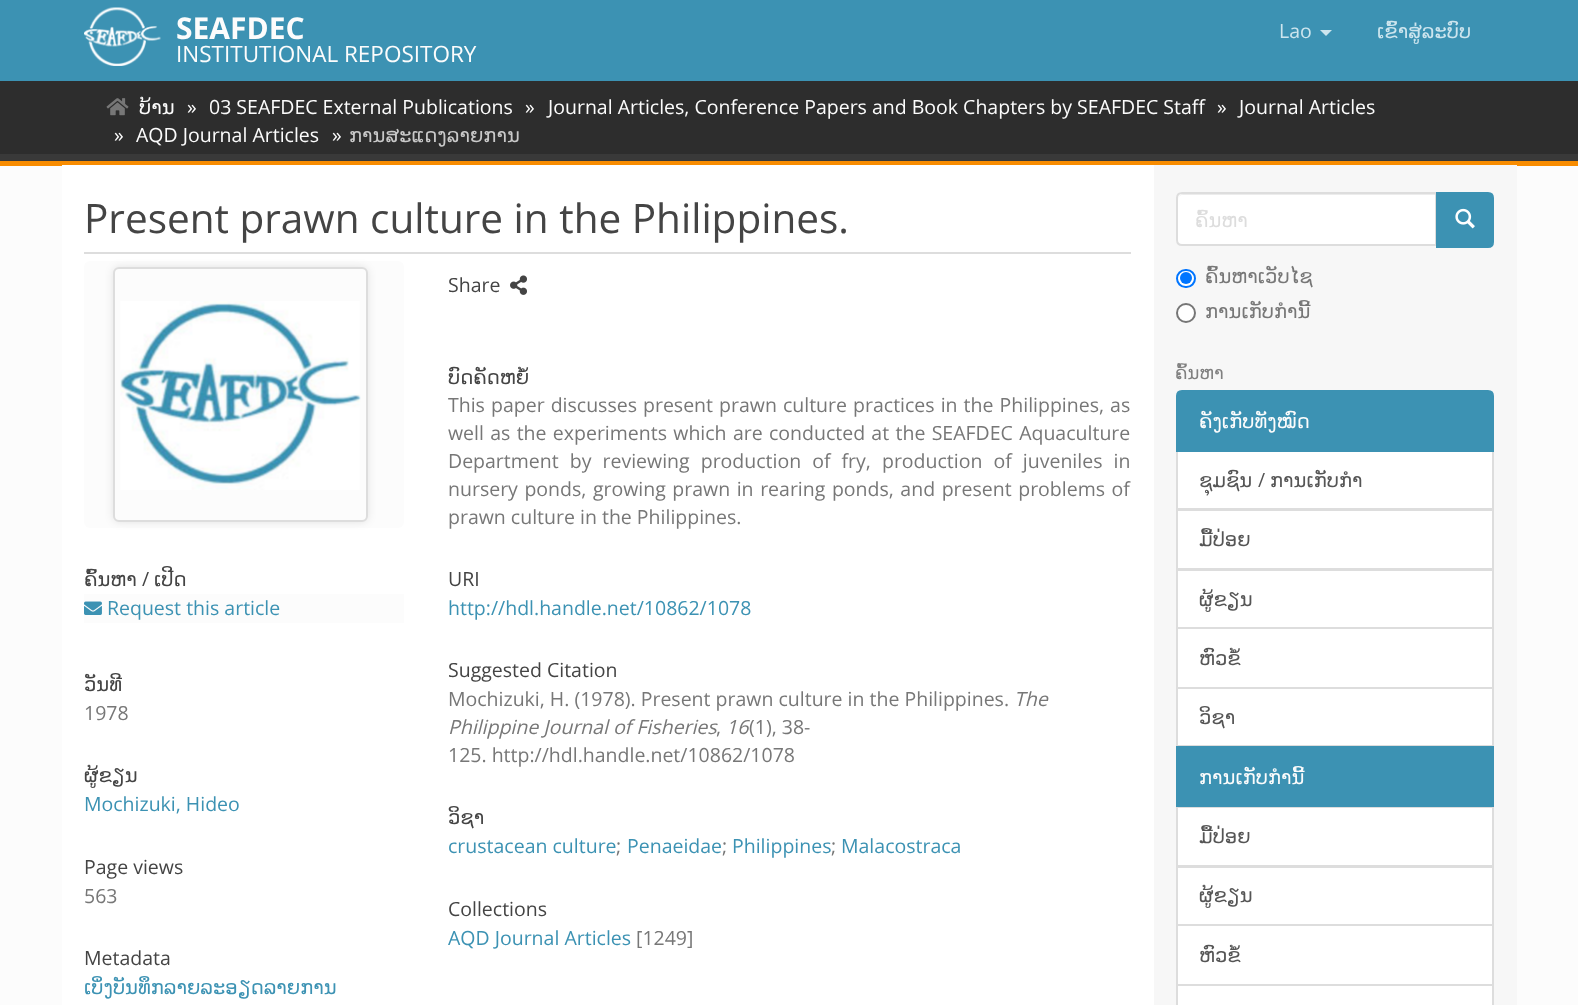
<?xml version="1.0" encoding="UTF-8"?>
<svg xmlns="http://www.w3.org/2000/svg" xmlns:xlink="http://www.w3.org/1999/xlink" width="1578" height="1005">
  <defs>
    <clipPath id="clip1"><rect y="81" width="1578" height="80" /></clipPath>
    <clipPath id="clip2"><rect x="1196" y="206" width="222" height="27" /></clipPath>
  </defs>
  <rect width="100%" height="100%" fill="#fcfcfc" />
  <rect width="1578" height="81" fill="#3c92b3" />
  <image x="84" y="7" width="77" height="59" xlink:href="image1.png" />
  <path d="M 1320 30 h 12 l -6 6 z" fill="#cde5ee" />
  <rect y="81" width="1578" height="73" fill="#2d2d2d" />
  <g clip-path="url(#clip1)">
    <path d="M -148 -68 h 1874 v 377 h -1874 z m 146 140 h 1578 c 1 0 2 1 2 2 v 79 c 0 1 -1 1 -2 1 h -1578 c 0 0 -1 0 -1 -1 v -79 c 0 -1 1 -2 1 -2 z" fill="#393939" fill-rule="evenodd" />
  </g>
  <rect y="161" width="1578" height="5" fill="#f88c00" />
  <image x="106" y="98" width="23" height="18" xlink:href="image2.png" />
  <rect x="1154" y="165" width="363" height="840" fill="#f7f7f7" />
  <rect x="62" y="165" width="1092" height="840" fill="#ffffff" />
  <rect x="84" y="252" width="1047" height="2" fill="#dddddd" />
  <rect x="84" y="261" width="320" height="267" rx="6" fill="#fcfcfc" />
  <rect x="113" y="267" width="255" height="255" rx="6" fill="#000000" fill-opacity="0.1" filter="blur(4px)" />
  <rect x="114" y="268" width="253" height="253" rx="5" fill="#fcfcfc" stroke="#dddddd" stroke-width="2" />
  <image x="120" y="301" width="241" height="189" xlink:href="image3.png" />
  <rect x="84" y="594" width="320" height="29" fill="#fcfcfc" />
  <image x="84" y="601" width="18" height="14" xlink:href="image4.png" />
  <image x="510" y="275" width="17" height="20" xlink:href="image5.png" />
  <path d="M 1182 192 h 255 v 54 h -255 c -3.5 0 -6 -2.5 -6 -6 v -42 c 0 -3.5 2.5 -6 6 -6 z" fill="#ffffff" />
  <path d="M 1182 195 h 254 v -1 h -253 c -3 0 -5 3 -5 6 c 0 -3 2 -5 4 -5 z" fill="#ececec" />
  <path d="M 1182 193 h 254 v 52 h -254 c -3 0 -5 -2 -5 -5 v -42 c 0 -3 2 -5 5 -5 z" fill="none" stroke="#dddddd" stroke-width="2" />
  <path d="M 1437 193 h 51 c 3 0 5 2 5 5 v 44 c 0 3 -2 5 -5 5 h -51 z" fill="#3c92b3" stroke="#3c92b3" stroke-width="2" />
  <image x="1455" y="208" width="20" height="21" xlink:href="image6.png" />
  <rect x="1177" y="270" width="18" height="17" rx="8.5" fill="#ffffff" stroke="#0075ff" stroke-width="2" />
  <circle cx="1186" cy="278" r="6" fill="#0075ff" />
  <circle cx="1186" cy="313" r="9" fill="#ffffff" stroke="#767676" stroke-width="2" />
  <rect x="1177" y="451" width="316" height="58" fill="#ffffff" stroke="#dddddd" stroke-width="2" />
  <path d="M 1182 391 h 306 c 3 0 5 2 5 5 v 55 h -316 v -55 c 0 -3 2 -5 5 -5 z" fill="#3c92b3" stroke="#3c92b3" stroke-width="2" />
  <rect x="1177" y="510" width="316" height="59" fill="#ffffff" stroke="#dddddd" stroke-width="2" />
  <rect x="1177" y="570" width="316" height="58" fill="#ffffff" stroke="#dddddd" stroke-width="2" />
  <rect x="1177" y="628" width="316" height="60" fill="#ffffff" stroke="#dddddd" stroke-width="2" />
  <rect x="1177" y="688" width="316" height="58" fill="#ffffff" stroke="#dddddd" stroke-width="2" />
  <rect x="1177" y="807" width="316" height="59" fill="#ffffff" stroke="#dddddd" stroke-width="2" />
  <rect x="1176" y="746" width="318" height="61" fill="#3c92b3" />
  <rect x="1177" y="867" width="316" height="58" fill="#ffffff" stroke="#dddddd" stroke-width="2" />
  <rect x="1177" y="925" width="316" height="60" fill="#ffffff" stroke="#dddddd" stroke-width="2" />
  <rect x="1177" y="985" width="316" height="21" fill="#ffffff" stroke="#dddddd" stroke-width="2" />
  <text x="176" y="39" style="font-family: Open Sans; font-size: 30px; font-weight: bold; fill: #fcfcfc">SEAFDEC</text>
  <text x="176" y="62" style="font-family: Open Sans; font-size: 22.5px; fill: #fcfcfc">INSTITUTIONAL REPOSITORY</text>
  <text x="1279" y="38" style="font-family: Open Sans; font-size: 19.5px; fill: #cde5ee">Lao</text>
  <text x="1377" y="38" style="font-family: DejaVu Sans; font-size: 19.5px; fill: #cde5ee">ເຂົ້າສູ່ລະບົບ</text>
  <text x="139" y="114" style="font-family: DejaVu Sans; font-size: 19.5px; fill: #fcfcfc">ບ້ານ</text>
  <text x="187" y="114" style="font-family: Open Sans; font-size: 19.5px; fill: #fcfcfc">»</text>
  <text x="209" y="114" style="font-family: Open Sans; font-size: 19.5px; fill: #fcfcfc">03 SEAFDEC External Publications</text>
  <text x="525" y="114" style="font-family: Open Sans; font-size: 19.5px; fill: #fcfcfc">»</text>
  <text x="548" y="114" style="font-family: Open Sans; font-size: 19.5px; fill: #fcfcfc">Journal Articles, Conference Papers and Book Chapters by SEAFDEC Staff</text>
  <text x="1217" y="114" style="font-family: Open Sans; font-size: 19.5px; fill: #fcfcfc">»</text>
  <text x="1239" y="114" style="font-family: Open Sans; font-size: 19.5px; fill: #fcfcfc">Journal Articles</text>
  <text x="114" y="142" style="font-family: Open Sans; font-size: 19.5px; fill: #fcfcfc">»</text>
  <text x="136" y="142" style="font-family: Open Sans; font-size: 19.5px; fill: #fcfcfc">AQD Journal Articles</text>
  <text x="332" y="142" style="font-family: Open Sans; font-size: 19.5px; fill: #fcfcfc">»</text>
  <text x="349" y="142" style="font-family: DejaVu Sans; font-size: 19.5px; fill: #c9c9c9">ການສະແດງລາຍການ</text>
  <text x="84" y="233" style="font-family: Open Sans; font-size: 40.5px; fill: #444444">Present prawn culture in the Philippines.</text>
  <text x="84" y="586" style="font-family: DejaVu Sans; font-size: 19.5px; fill: #444444">ຄົ້ນຫາ</text>
  <text x="142" y="586" style="font-family: Open Sans; font-size: 19.5px; fill: #444444">/</text>
  <text x="154" y="586" style="font-family: DejaVu Sans; font-size: 19.5px; fill: #444444">ເປີດ</text>
  <text x="107" y="615" style="font-family: Open Sans; font-size: 19.5px; fill: #3c92b3">Request this article</text>
  <text x="84" y="691" style="font-family: DejaVu Sans; font-size: 19.5px; fill: #444444">ວັນທີ</text>
  <text x="84" y="720" style="font-family: Open Sans; font-size: 19.5px; fill: #777777">1978</text>
  <text x="84" y="782" style="font-family: DejaVu Sans; font-size: 19.5px; fill: #444444">ຜູ້ຂຽນ</text>
  <text x="84" y="811" style="font-family: Open Sans; font-size: 19.5px; fill: #3c92b3">Mochizuki, Hideo</text>
  <text x="84" y="874" style="font-family: Open Sans; font-size: 19.5px; fill: #444444">Page views</text>
  <text x="84" y="903" style="font-family: Open Sans; font-size: 19.5px; fill: #777777">563</text>
  <text x="84" y="965" style="font-family: Open Sans; font-size: 19.5px; fill: #444444">Metadata</text>
  <text x="84" y="994" style="font-family: DejaVu Sans; font-size: 19.5px; fill: #3c92b3">ເບິ່ງບັນທຶກລາຍລະອຽດລາຍການ</text>
  <text x="448" y="292" style="font-family: Open Sans; font-size: 19.5px; fill: #444444">Share</text>
  <text x="448" y="384" style="font-family: DejaVu Sans; font-size: 19.5px; fill: #444444">ບົດຄັດຫຍໍ້</text>
  <text x="448" y="412" word-spacing="1" style="font-family: Open Sans; font-size: 19.5px; fill: #777777">This paper discusses present prawn culture practices in the Philippines, as</text>
  <text x="448" y="440" word-spacing="1.25" style="font-family: Open Sans; font-size: 19.5px; fill: #777777">well as the experiments which are conducted at the SEAFDEC Aquaculture</text>
  <text x="448" y="468" word-spacing="6" style="font-family: Open Sans; font-size: 19.5px; fill: #777777">Department by reviewing production of fry, production of juveniles in</text>
  <text x="448" y="496" word-spacing="1.5" style="font-family: Open Sans; font-size: 19.5px; fill: #777777">nursery ponds, growing prawn in rearing ponds, and present problems of</text>
  <text x="448" y="524" style="font-family: Open Sans; font-size: 19.5px; fill: #777777">prawn culture in the Philippines.</text>
  <text x="448" y="586" style="font-family: Open Sans; font-size: 19.5px; fill: #444444">URI</text>
  <text x="448" y="615" style="font-family: Open Sans; font-size: 19.5px; fill: #3c92b3">http://hdl.handle.net/10862/1078</text>
  <text x="448" y="677" style="font-family: Open Sans; font-size: 19.5px; fill: #444444">Suggested Citation</text>
  <text x="448" y="706" style="font-family: Open Sans; font-size: 19.5px; fill: #777777">Mochizuki, H. (1978). Present prawn culture in the Philippines.</text>
  <text x="1014" y="706" style="font-family: Open Sans; font-size: 19.5px; font-style: italic; fill: #777777">The</text>
  <text x="448" y="734" style="font-family: Open Sans; font-size: 19.5px; font-style: italic; fill: #777777">Philippine Journal of Fisheries</text>
  <text x="716" y="734" style="font-family: Open Sans; font-size: 19.5px; fill: #777777">,</text>
  <text x="726" y="734" style="font-family: Open Sans; font-size: 19.5px; font-style: italic; fill: #777777">16</text>
  <text x="749" y="734" style="font-family: Open Sans; font-size: 19.5px; fill: #777777">(1), 38-</text>
  <text x="448" y="762" style="font-family: Open Sans; font-size: 19.5px; fill: #777777">125. http://hdl.handle.net/10862/1078</text>
  <text x="448" y="824" style="font-family: DejaVu Sans; font-size: 19.5px; fill: #444444">ວິຊາ</text>
  <text x="448" y="853" style="font-family: Open Sans; font-size: 19.5px; fill: #3c92b3">crustacean culture</text>
  <text x="616" y="853" style="font-family: Open Sans; font-size: 19.5px; fill: #777777">;</text>
  <text x="627" y="853" style="font-family: Open Sans; font-size: 19.5px; fill: #3c92b3">Penaeidae</text>
  <text x="722" y="853" style="font-family: Open Sans; font-size: 19.5px; fill: #777777">;</text>
  <text x="732" y="853" style="font-family: Open Sans; font-size: 19.5px; fill: #3c92b3">Philippines</text>
  <text x="831" y="853" style="font-family: Open Sans; font-size: 19.5px; fill: #777777">;</text>
  <text x="841" y="853" style="font-family: Open Sans; font-size: 19.5px; fill: #3c92b3">Malacostraca</text>
  <text x="448" y="916" style="font-family: Open Sans; font-size: 19.5px; fill: #444444">Collections</text>
  <text x="448" y="945" style="font-family: Open Sans; font-size: 19.5px; fill: #3c92b3">AQD Journal Articles</text>
  <text x="636" y="945" style="font-family: Open Sans; font-size: 19.5px; fill: #777777">[1249]</text>
  <g clip-path="url(#clip2)">
    <text x="1195" y="227" style="font-family: DejaVu Sans; font-size: 19.5px; fill: #dddddd">ຄົ້ນຫາ</text>
  </g>
  <text x="1205" y="283" style="font-family: DejaVu Sans; font-size: 19.5px; fill: #777777">ຄົ້ນຫາເວັບໄຊ</text>
  <text x="1205" y="318" style="font-family: DejaVu Sans; font-size: 19.5px; fill: #777777">ການເກັບກໍານີ້</text>
  <text x="1175" y="379" style="font-family: DejaVu Sans; font-size: 18px; fill: #808080">ຄົ້ນຫາ</text>
  <text x="1199" y="428" style="font-family: DejaVu Sans; font-size: 19.5px; fill: #fcfcfc">ຄັງເກັບທັງໝົດ</text>
  <text x="1199" y="487" style="font-family: DejaVu Sans; font-size: 19.5px; fill: #555555">ຊຸມຊົນ</text>
  <text x="1258" y="487" style="font-family: Open Sans; font-size: 19.5px; fill: #555555">/</text>
  <text x="1270" y="487" style="font-family: DejaVu Sans; font-size: 19.5px; fill: #555555">ການເກັບກໍາ</text>
  <text x="1199" y="546" style="font-family: DejaVu Sans; font-size: 19.5px; fill: #555555">ມື້ປ່ອຍ</text>
  <text x="1199" y="606" style="font-family: DejaVu Sans; font-size: 19.5px; fill: #555555">ຜູ້ຂຽນ</text>
  <text x="1199" y="665" style="font-family: DejaVu Sans; font-size: 19.5px; fill: #555555">ຫົວຂໍ້</text>
  <text x="1199" y="724" style="font-family: DejaVu Sans; font-size: 19.5px; fill: #555555">ວິຊາ</text>
  <text x="1199" y="784" style="font-family: DejaVu Sans; font-size: 19.5px; fill: #fcfcfc">ການເກັບກໍານີ້</text>
  <text x="1199" y="843" style="font-family: DejaVu Sans; font-size: 19.5px; fill: #555555">ມື້ປ່ອຍ</text>
  <text x="1199" y="902" style="font-family: DejaVu Sans; font-size: 19.5px; fill: #555555">ຜູ້ຂຽນ</text>
  <text x="1199" y="962" style="font-family: DejaVu Sans; font-size: 19.5px; fill: #555555">ຫົວຂໍ້</text>
</svg>
